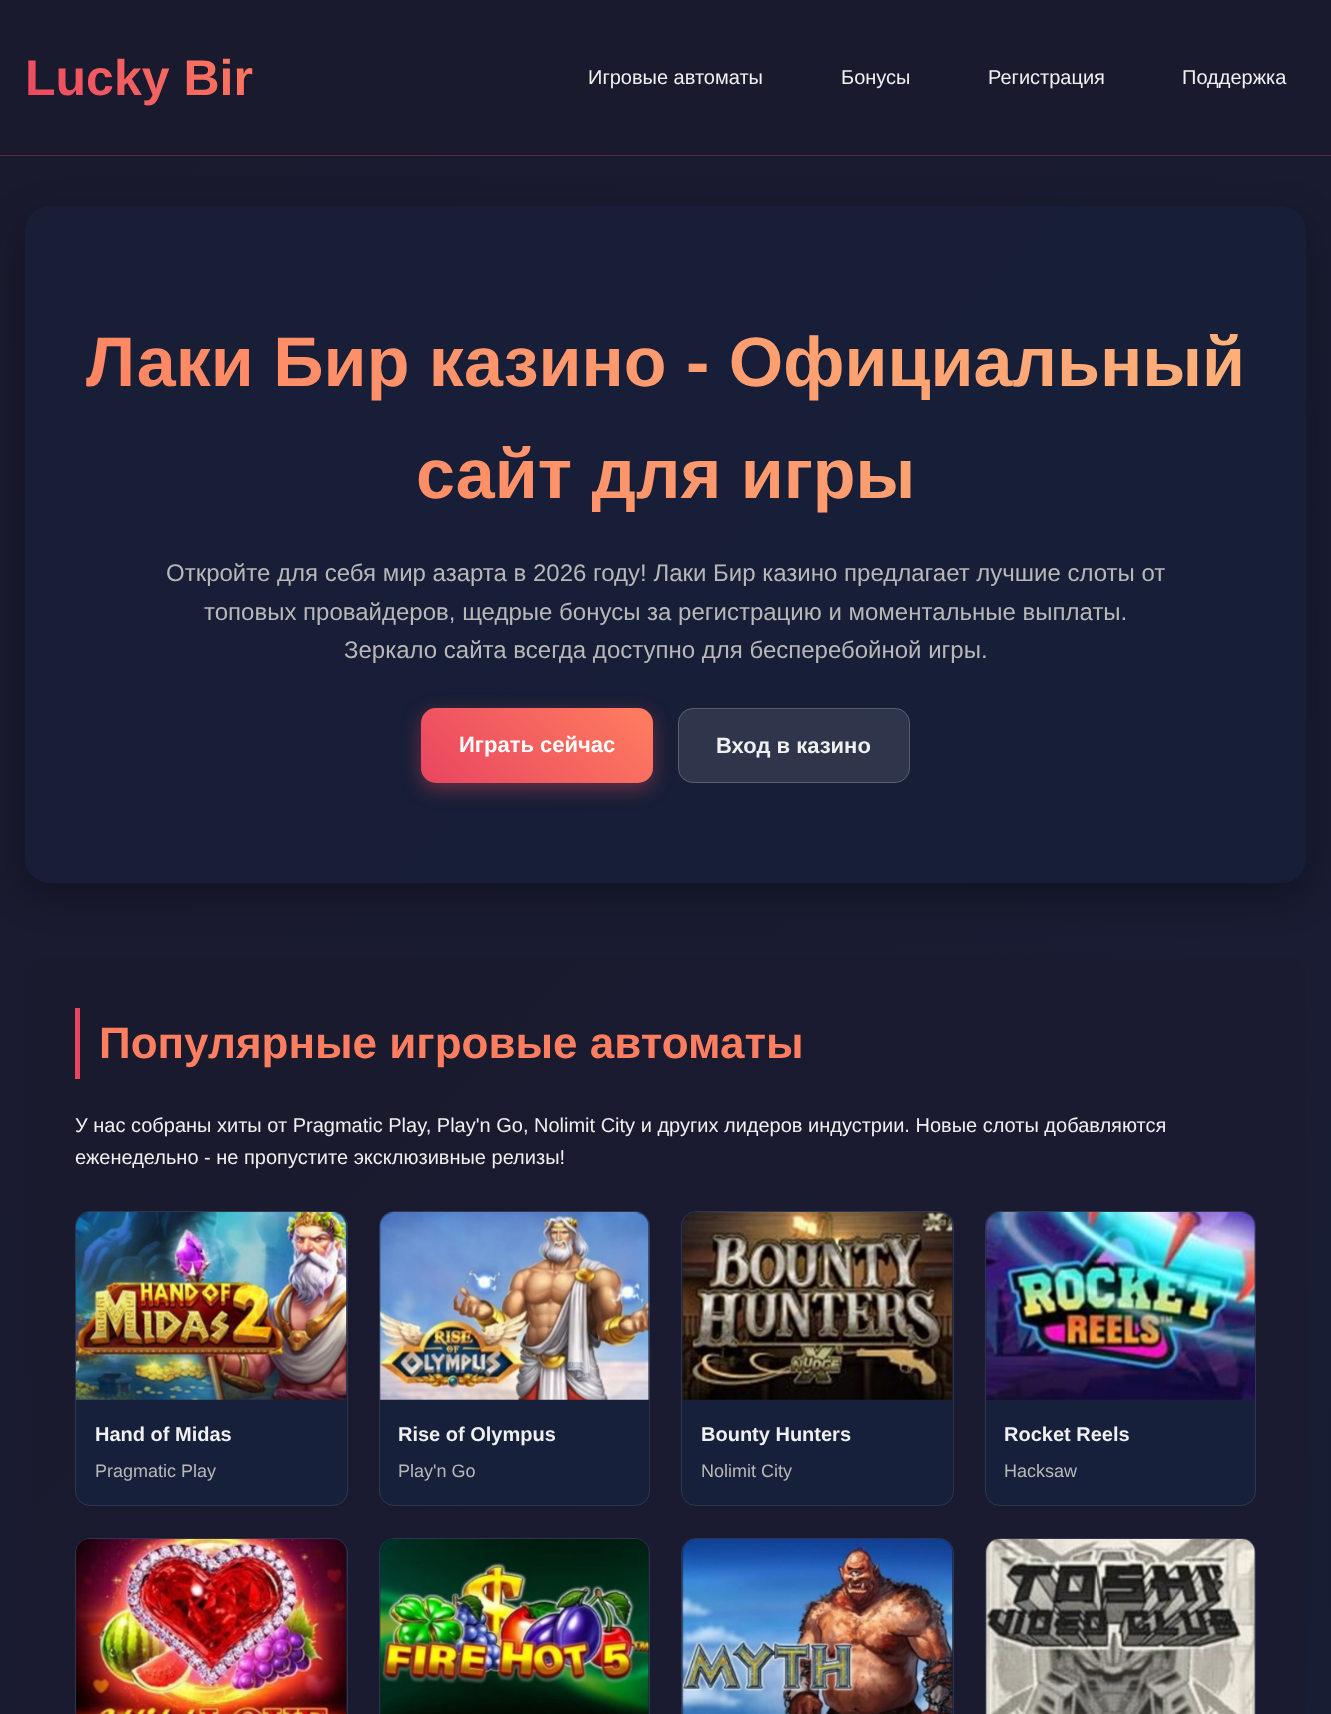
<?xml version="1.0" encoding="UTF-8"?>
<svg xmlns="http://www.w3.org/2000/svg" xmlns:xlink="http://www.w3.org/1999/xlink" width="1331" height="1714">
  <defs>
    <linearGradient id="g1" gradientUnits="userSpaceOnUse" x1="-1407" y1="1407" x2="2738" y2="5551"><stop offset="0" stop-color="#1a1a2e" /><stop offset="1" stop-color="#16213e" /></linearGradient>
    <linearGradient id="g2" gradientUnits="userSpaceOnUse" x1="-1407" y1="1407" x2="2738" y2="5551"><stop offset="0" stop-color="#1a1a2e" /><stop offset="1" stop-color="#191b31" /></linearGradient>
    <clipPath id="clip1"><path d="M 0 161 h 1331 v 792 h -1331 z m 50 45 h 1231 c 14 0 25 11 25 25 v 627 c 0 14 -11 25 -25 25 h -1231 c -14 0 -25 -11 -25 -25 v -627 c 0 -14 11 -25 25 -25 z" clip-rule="evenodd" /></clipPath>
    <linearGradient id="g3" gradientUnits="userSpaceOnUse" x1="62" y1="154" x2="216" y2="0.5"><stop offset="0" stop-color="#e94560" /><stop offset="1" stop-color="#ff7e5f" /></linearGradient>
    <linearGradient id="g4" gradientUnits="userSpaceOnUse" x1="289" y1="795" x2="1042" y2="42"><stop offset="0" stop-color="#ff7e5f" /><stop offset="1" stop-color="#feb47b" /></linearGradient>
    <linearGradient id="g5" gradientUnits="userSpaceOnUse" x1="460" y1="822" x2="613" y2="668"><stop offset="0" stop-color="#e94560" /><stop offset="1" stop-color="#ff7e5f" /></linearGradient>
  </defs>
  <rect width="100%" height="100%" fill="#ffffff" />
  <rect y="156" width="1331" height="1558" fill="url(#g1)" />
  <rect width="1331" height="155" fill="url(#g2)" />
  <rect y="155" width="1331" height="1" fill="#58273d" />
  <g clip-path="url(#clip1)">
    <rect x="25" y="219" width="1281" height="676" rx="25" fill="#000000" fill-opacity="0.3" filter="blur(19px)" />
  </g>
  <rect x="25" y="206" width="1281" height="677" rx="25" fill="#16213e" fill-opacity="0.5" />
  <rect x="421" y="714" width="232" height="75" rx="15" fill="#e94560" fill-opacity="0.4" filter="blur(9.5px)" />
  <rect x="421" y="708" width="232" height="75" rx="15" fill="url(#g5)" />
  <rect x="678" y="708" width="232" height="75" rx="15" fill="#2f354b" />
  <rect x="678.5" y="708.5" width="231" height="74" rx="14.5" fill="none" stroke="#ffffff" stroke-opacity="0.2" />
  <rect x="25" y="958" width="1281" height="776" rx="20" fill="#1a1a2e" fill-opacity="0.6" />
  <rect x="75" y="1008" width="5" height="71" fill="#e94560" />
  <rect x="75" y="1211" width="273" height="295" rx="15" fill="#17203b" />
  <rect x="75.5" y="1211.5" width="272" height="294" rx="14.5" fill="none" stroke="#ffffff" stroke-opacity="0.1" />
  <image x="76" y="1212" width="271" height="188" xlink:href="image1.png" />
  <rect x="379" y="1211" width="271" height="295" rx="15" fill="#17203b" />
  <rect x="379.5" y="1211.5" width="270" height="294" rx="14.5" fill="none" stroke="#ffffff" stroke-opacity="0.1" />
  <image x="379" y="1212" width="271" height="188" xlink:href="image2.png" />
  <rect x="681" y="1211" width="273" height="295" rx="15" fill="#17203b" />
  <rect x="681.5" y="1211.5" width="272" height="294" rx="14.5" fill="none" stroke="#ffffff" stroke-opacity="0.1" />
  <image x="682" y="1212" width="271" height="188" xlink:href="image3.png" />
  <rect x="985" y="1211" width="271" height="295" rx="15" fill="#17203b" />
  <rect x="985.5" y="1211.5" width="270" height="294" rx="14.5" fill="none" stroke="#ffffff" stroke-opacity="0.1" />
  <image x="986" y="1212" width="269" height="188" xlink:href="image4.png" />
  <rect x="75" y="1538" width="273" height="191" rx="15" fill="#17203b" />
  <rect x="75.5" y="1538.5" width="272" height="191" rx="14.5" fill="none" stroke="#ffffff" stroke-opacity="0.1" />
  <image x="76" y="1539" width="271" height="175" xlink:href="image5.png" />
  <rect x="379" y="1538" width="271" height="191" rx="15" fill="#17203b" />
  <rect x="379.5" y="1538.5" width="270" height="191" rx="14.5" fill="none" stroke="#ffffff" stroke-opacity="0.1" />
  <image x="379" y="1539" width="271" height="175" xlink:href="image6.png" />
  <rect x="681" y="1538" width="273" height="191" rx="15" fill="#17203b" />
  <rect x="681.5" y="1538.5" width="272" height="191" rx="14.5" fill="none" stroke="#ffffff" stroke-opacity="0.1" />
  <image x="682" y="1539" width="271" height="175" xlink:href="image7.png" />
  <rect x="985" y="1538" width="271" height="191" rx="15" fill="#17203b" />
  <rect x="985.5" y="1538.5" width="270" height="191" rx="14.5" fill="none" stroke="#ffffff" stroke-opacity="0.1" />
  <image x="986" y="1539" width="269" height="175" xlink:href="image8.png" />
  <text x="25" y="95" style="font-family: Liberation Sans; font-size: 50px; font-weight: bold; fill: url(#g3)">Lucky Bir</text>
  <text x="588" y="84" style="font-family: Liberation Sans; font-size: 20px; fill: #f0f0f0">Игровые автоматы</text>
  <text x="841" y="84" style="font-family: Liberation Sans; font-size: 20px; fill: #f0f0f0">Бонусы</text>
  <text x="988" y="84" style="font-family: Liberation Sans; font-size: 20px; fill: #f0f0f0">Регистрация</text>
  <text x="1182" y="84" style="font-family: Liberation Sans; font-size: 20px; fill: #f0f0f0">Поддержка</text>
  <text x="86" y="386" style="font-family: Liberation Sans; font-size: 70px; font-weight: bold; fill: url(#g4)">Лаки Бир казино - Официальный</text>
  <text x="416" y="498" style="font-family: Liberation Sans; font-size: 70px; font-weight: bold; fill: url(#g4)">сайт для игры</text>
  <text x="166" y="581" style="font-family: Liberation Sans; font-size: 24px; fill: #b8b8b8">Откройте для себя мир азарта в 2026 году! Лаки Бир казино предлагает лучшие слоты от</text>
  <text x="204" y="620" style="font-family: Liberation Sans; font-size: 24px; fill: #b8b8b8">топовых провайдеров, щедрые бонусы за регистрацию и моментальные выплаты.</text>
  <text x="344" y="658" style="font-family: Liberation Sans; font-size: 24px; fill: #b8b8b8">Зеркало сайта всегда доступно для бесперебойной игры.</text>
  <text x="459" y="752" style="font-family: Liberation Sans; font-size: 22px; font-weight: bold; fill: #ffffff">Играть сейчас</text>
  <text x="716" y="753" style="font-family: Liberation Sans; font-size: 22px; font-weight: bold; fill: #f0f0f0">Вход в казино</text>
  <text x="99" y="1058" style="font-family: Liberation Sans; font-size: 44px; font-weight: bold; fill: #ff7e5f">Популярные игровые автоматы</text>
  <text x="75" y="1132" style="font-family: Liberation Sans; font-size: 20px; fill: #f0f0f0">У нас собраны хиты от Pragmatic Play, Play'n Go, Nolimit City и других лидеров индустрии. Новые слоты добавляются</text>
  <text x="75" y="1164" style="font-family: Liberation Sans; font-size: 20px; fill: #f0f0f0">еженедельно - не пропустите эксклюзивные релизы!</text>
  <text x="95" y="1441" style="font-family: Liberation Sans; font-size: 20px; font-weight: bold; fill: #f0f0f0">Hand of Midas</text>
  <text x="95" y="1477" style="font-family: Liberation Sans; font-size: 18px; fill: #b8b8b8">Pragmatic Play</text>
  <text x="398" y="1441" style="font-family: Liberation Sans; font-size: 20px; font-weight: bold; fill: #f0f0f0">Rise of Olympus</text>
  <text x="398" y="1477" style="font-family: Liberation Sans; font-size: 18px; fill: #b8b8b8">Play'n Go</text>
  <text x="701" y="1441" style="font-family: Liberation Sans; font-size: 20px; font-weight: bold; fill: #f0f0f0">Bounty Hunters</text>
  <text x="701" y="1477" style="font-family: Liberation Sans; font-size: 18px; fill: #b8b8b8">Nolimit City</text>
  <text x="1004" y="1441" style="font-family: Liberation Sans; font-size: 20px; font-weight: bold; fill: #f0f0f0">Rocket Reels</text>
  <text x="1004" y="1477" style="font-family: Liberation Sans; font-size: 18px; fill: #b8b8b8">Hacksaw</text>
</svg>
